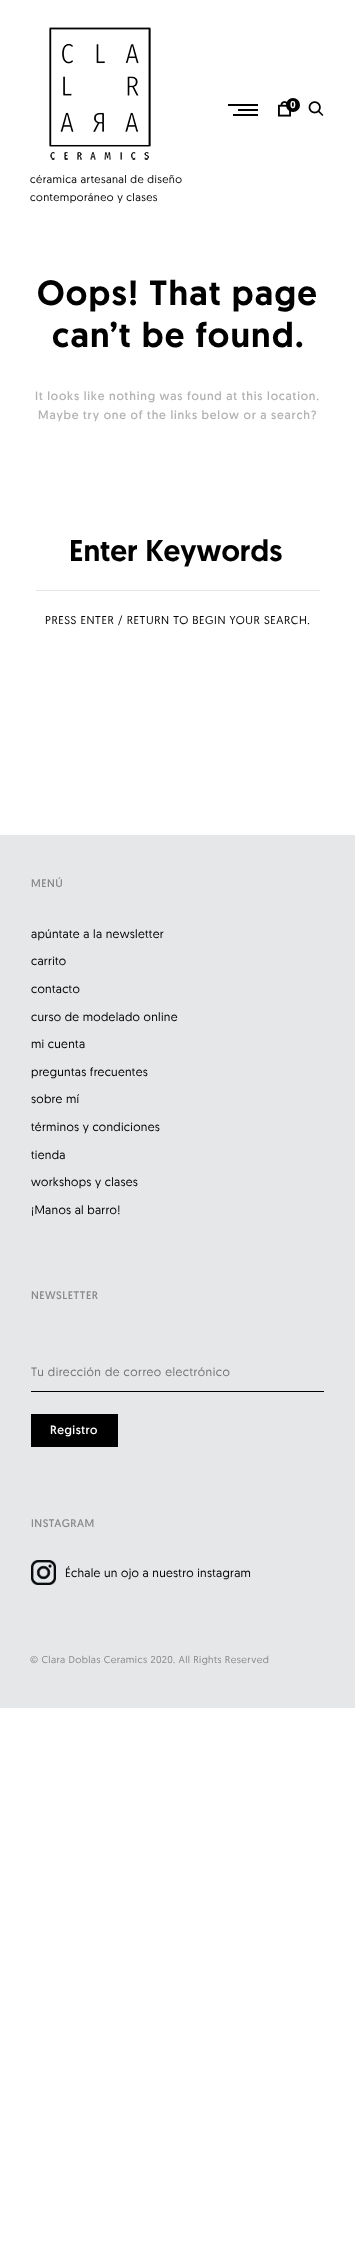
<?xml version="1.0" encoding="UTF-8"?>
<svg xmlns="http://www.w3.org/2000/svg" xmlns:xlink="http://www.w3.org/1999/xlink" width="355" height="2247">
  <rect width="100%" height="100%" fill="#ffffff" />
  <rect x="238" y="109" width="20" height="2" fill="#000000" />
  <rect x="228" y="104" width="30" height="2" fill="#000000" />
  <rect x="233" y="114" width="25" height="2" fill="#000000" />
  <image x="278" y="101" width="13" height="16" xlink:href="image1.png" />
  <circle cx="293" cy="105" r="7" fill="#000000" />
  <image x="308" y="101" width="16" height="15" xlink:href="image2.png" />
  <image x="49" y="27" width="102" height="133" xlink:href="image3.png" />
  <rect x="36" y="590" width="284" height="1" fill="#e6e6e6" />
  <rect y="835" width="355" height="873" fill="#e6e7e8" />
  <rect x="31" y="1391" width="293" height="1" fill="#000000" />
  <rect x="31" y="1414" width="87" height="33" fill="#000000" />
  <image x="31" y="1560" width="25" height="25" xlink:href="image4.png" />
  <text x="290" y="108" style="font-family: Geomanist; font-size: 10px; font-weight: 500; fill: #ffffff">0</text>
  <text x="30" y="183" style="font-family: 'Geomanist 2'; font-size: 11px; letter-spacing: 0.4px; fill: #000000">céramica artesanal de diseño</text>
  <text x="30" y="201" style="font-family: 'Geomanist 2'; font-size: 11px; letter-spacing: 0.4px; fill: #000000">contemporáneo y clases</text>
  <text x="37" y="305" style="font-family: Geomanist; font-size: 35px; font-weight: 500; letter-spacing: 1.25px; fill: #000000">Oops! That page</text>
  <text x="52" y="347" style="font-family: Geomanist; font-size: 35px; font-weight: 500; letter-spacing: 1.25px; fill: #000000">can’t be found.</text>
  <text x="35" y="400" style="font-family: Geomanist; font-size: 12px; letter-spacing: 0.8px; fill: #b3b3b3">It looks like nothing was found at this location.</text>
  <text x="38" y="419" style="font-family: Geomanist; font-size: 12px; letter-spacing: 0.8px; fill: #b3b3b3">Maybe try one of the links below or a search?</text>
  <text x="69" y="561" style="font-family: Geomanist; font-size: 30px; font-weight: 500; fill: #000000">Enter Keywords</text>
  <text x="45" y="624" style="font-family: 'Geomanist 2'; font-size: 11.4px; letter-spacing: 0.6px; fill: #000000">PRESS ENTER / RETURN TO BEGIN YOUR SEARCH.</text>
  <text x="31" y="887" style="font-family: Geomanist; font-size: 11px; letter-spacing: 0.5px; fill: #8a8a8a">MENÚ</text>
  <text x="31" y="938" style="font-family: 'Geomanist 2'; font-size: 12px; letter-spacing: 0.3px; fill: #000000">apúntate a la newsletter</text>
  <text x="31" y="965" style="font-family: 'Geomanist 2'; font-size: 12px; letter-spacing: 0.3px; fill: #000000">carrito</text>
  <text x="31" y="993" style="font-family: 'Geomanist 2'; font-size: 12px; letter-spacing: 0.3px; fill: #000000">contacto</text>
  <text x="31" y="1021" style="font-family: 'Geomanist 2'; font-size: 12px; letter-spacing: 0.3px; fill: #000000">curso de modelado online</text>
  <text x="31" y="1048" style="font-family: 'Geomanist 2'; font-size: 12px; letter-spacing: 0.3px; fill: #000000">mi cuenta</text>
  <text x="31" y="1076" style="font-family: 'Geomanist 2'; font-size: 12px; letter-spacing: 0.3px; fill: #000000">preguntas frecuentes</text>
  <text x="31" y="1103" style="font-family: 'Geomanist 2'; font-size: 12px; letter-spacing: 0.3px; fill: #000000">sobre mí</text>
  <text x="31" y="1131" style="font-family: 'Geomanist 2'; font-size: 12px; letter-spacing: 0.3px; fill: #000000">términos y condiciones</text>
  <text x="31" y="1159" style="font-family: 'Geomanist 2'; font-size: 12px; letter-spacing: 0.3px; fill: #000000">tienda</text>
  <text x="31" y="1186" style="font-family: 'Geomanist 2'; font-size: 12px; letter-spacing: 0.3px; fill: #000000">workshops y clases</text>
  <text x="31" y="1214" style="font-family: 'Geomanist 2'; font-size: 12px; letter-spacing: 0.3px; fill: #000000">¡Manos al barro!</text>
  <text x="31" y="1299" style="font-family: Geomanist; font-size: 11px; letter-spacing: 0.5px; fill: #8a8a8a">NEWSLETTER</text>
  <text x="31" y="1376" style="font-family: 'Geomanist 2'; font-size: 12px; letter-spacing: 0.5px; fill: #757575">Tu dirección de correo electrónico</text>
  <text x="50" y="1434" style="font-family: Geomanist; font-size: 12px; letter-spacing: 0.5px; fill: #ffffff">Registro</text>
  <text x="31" y="1527" style="font-family: Geomanist; font-size: 11px; letter-spacing: 0.5px; fill: #8a8a8a">INSTAGRAM</text>
  <text x="65" y="1577" style="font-family: 'Geomanist 2'; font-size: 12px; letter-spacing: 0.3px; fill: #000000">Échale un ojo a nuestro instagram</text>
  <text x="30" y="1663" style="font-family: 'Geomanist 2'; font-size: 10px; letter-spacing: 0.4px; fill: #8a8a8a">© Clara Doblas Ceramics 2020. All Rights Reserved</text>
</svg>
